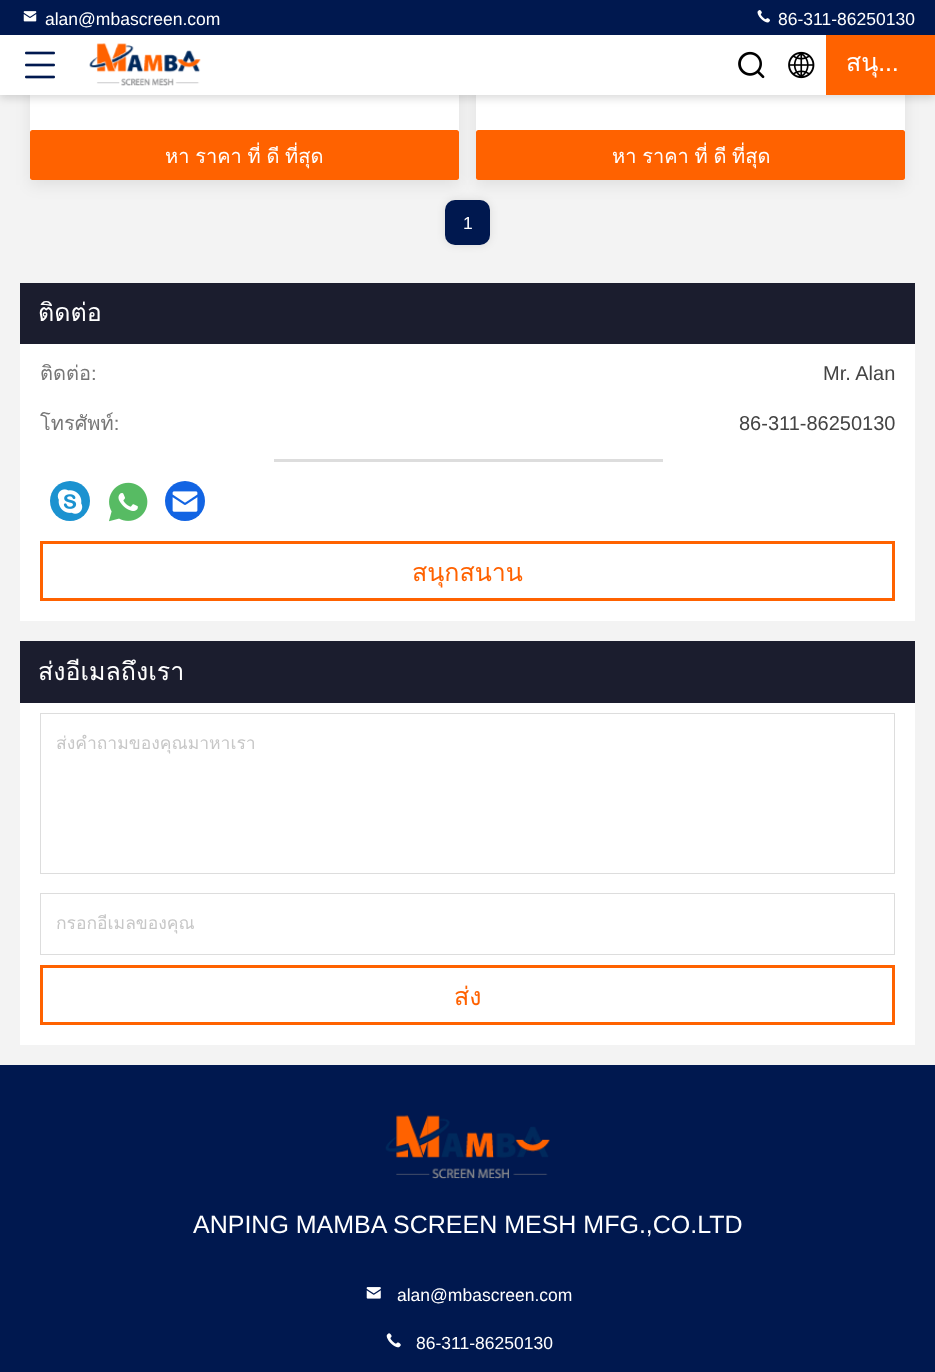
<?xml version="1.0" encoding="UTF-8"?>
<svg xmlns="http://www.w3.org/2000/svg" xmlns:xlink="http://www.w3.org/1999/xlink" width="935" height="1372">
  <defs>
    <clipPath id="clip1"><rect x="40" y="349" width="113" height="50" /></clipPath>
  </defs>
  <rect width="100%" height="100%" fill="#f3f3f3" />
  <rect x="30" y="-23" width="429" height="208" fill="#000000" fill-opacity="0.08" filter="blur(7.5px)" />
  <rect x="30" y="95" width="429" height="85" fill="#ffffff" />
  <rect x="476" y="-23" width="429" height="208" fill="#000000" fill-opacity="0.08" filter="blur(7.5px)" />
  <rect x="476" y="95" width="429" height="85" fill="#ffffff" />
  <rect y="3" width="935" height="95" fill="#000000" fill-opacity="0.15" filter="blur(4px)" />
  <rect width="935" height="35" fill="#00184f" />
  <image x="23" y="11" width="14" height="11" xlink:href="image1.png" />
  <image x="757" y="10" width="13" height="13" xlink:href="image2.png" />
  <rect y="35" width="826" height="60" fill="#ffffff" />
  <image x="25" y="51" width="30" height="28" xlink:href="image3.png" />
  <image x="89" y="43" width="112" height="43" xlink:href="image4.png" />
  <image x="738" y="51" width="27" height="28" xlink:href="image5.png" />
  <image x="788" y="51" width="27" height="28" xlink:href="image6.png" />
  <rect x="826" y="35" width="109" height="60" fill="#ff6200" />
  <rect x="30" y="130" width="429" height="50" rx="2.5" fill="#ff6200" />
  <rect x="476" y="130" width="429" height="50" rx="2.5" fill="#ff6200" />
  <rect x="445" y="200" width="45" height="45" rx="10" fill="#000000" fill-opacity="0.1" filter="blur(4px)" />
  <rect x="445" y="200" width="45" height="45" rx="10" fill="#00184f" />
  <rect x="20" y="283" width="895" height="61" fill="#1b1d2e" />
  <rect x="20" y="344" width="895" height="277" fill="#ffffff" />
  <rect x="274" y="459" width="389" height="3" fill="#dddddd" />
  <circle cx="70" cy="501" r="20" fill="#1b92d0" />
  <image x="57" y="489" width="26" height="25" xlink:href="image7.png" />
  <image x="109" y="482" width="39" height="40" xlink:href="image8.png" />
  <circle cx="185" cy="501" r="20" fill="#1264e3" />
  <image x="172" y="491" width="26" height="21" xlink:href="image9.png" />
  <rect x="41.5" y="542.5" width="852" height="57" fill="none" stroke="#ff6200" stroke-width="3" />
  <rect x="20" y="641" width="895" height="62" fill="#1b1d2e" />
  <rect x="20" y="703" width="895" height="342" fill="#ffffff" />
  <rect x="40.5" y="713.5" width="854" height="160" fill="none" stroke="#dddddd" />
  <rect x="40.5" y="893.5" width="854" height="61" fill="none" stroke="#dddddd" />
  <rect x="41.5" y="966.5" width="852" height="57" fill="none" stroke="#ff6200" stroke-width="3" />
  <rect y="1065" width="935" height="307" fill="#00184f" />
  <image x="385" y="1115" width="165" height="64" xlink:href="image10.png" />
  <image x="366" y="1287" width="15" height="12" xlink:href="image11.png" />
  <image x="386" y="1333" width="15" height="15" xlink:href="image12.png" />
  <text x="45" y="25" style="font-family: Liberation Sans; font-size: 17.5px; fill: #ffffff">alan@mbascreen.com</text>
  <text x="778" y="25" style="font-family: Liberation Sans; font-size: 17.5px; fill: #ffffff">86-311-86250130</text>
  <text x="846" y="71" style="font-family: Loma; font-size: 25px; fill: #ffffff">สนุ…</text>
  <text x="165" y="163" word-spacing="-1" style="font-family: Loma; font-size: 20px; fill: #ffffff">หา ราคา ที่ ดี ที่สุด</text>
  <text x="612" y="163" word-spacing="-1" style="font-family: Loma; font-size: 20px; fill: #ffffff">หา ราคา ที่ ดี ที่สุด</text>
  <text x="463" y="229" style="font-family: Liberation Sans; font-size: 17.5px; fill: #ffffff">1</text>
  <text x="38" y="321" style="font-family: Loma; font-size: 25px; fill: #ffffff">ติดต่อ</text>
  <g clip-path="url(#clip1)">
    <text x="40" y="380" style="font-family: Loma; font-size: 20px; fill: #777777">ติดต่อ:</text>
  </g>
  <text x="823" y="380" style="font-family: Liberation Sans; font-size: 20px; fill: #444444">Mr. Alan</text>
  <text x="40" y="430" style="font-family: Loma; font-size: 20px; fill: #777777">โทรศัพท์:</text>
  <text x="739" y="430" style="font-family: Liberation Sans; font-size: 20px; fill: #444444">86-311-86250130</text>
  <text x="412" y="581" style="font-family: Loma; font-size: 25px; fill: #ff6200">สนุกสนาน</text>
  <text x="38" y="680" style="font-family: Loma; font-size: 25px; fill: #ffffff">ส่งอีเมลถึงเรา</text>
  <text x="56" y="749" style="font-family: Loma; font-size: 17.5px; fill: #c7c7c7">ส่งคําถามของคุณมาหาเรา</text>
  <text x="56" y="929" style="font-family: Loma; font-size: 17.5px; fill: #c7c7c7">กรอกอีเมลของคุณ</text>
  <text x="454" y="1005" style="font-family: Loma; font-size: 25px; fill: #ff6200">ส่ง</text>
  <text x="193" y="1233" style="font-family: Liberation Sans; font-size: 25px; fill: #ffffff">ANPING MAMBA SCREEN MESH MFG.,CO.LTD</text>
  <text x="397" y="1301" style="font-family: Liberation Sans; font-size: 17.5px; fill: #ffffff">alan@mbascreen.com</text>
  <text x="416" y="1349" style="font-family: Liberation Sans; font-size: 17.5px; fill: #ffffff">86-311-86250130</text>
</svg>
